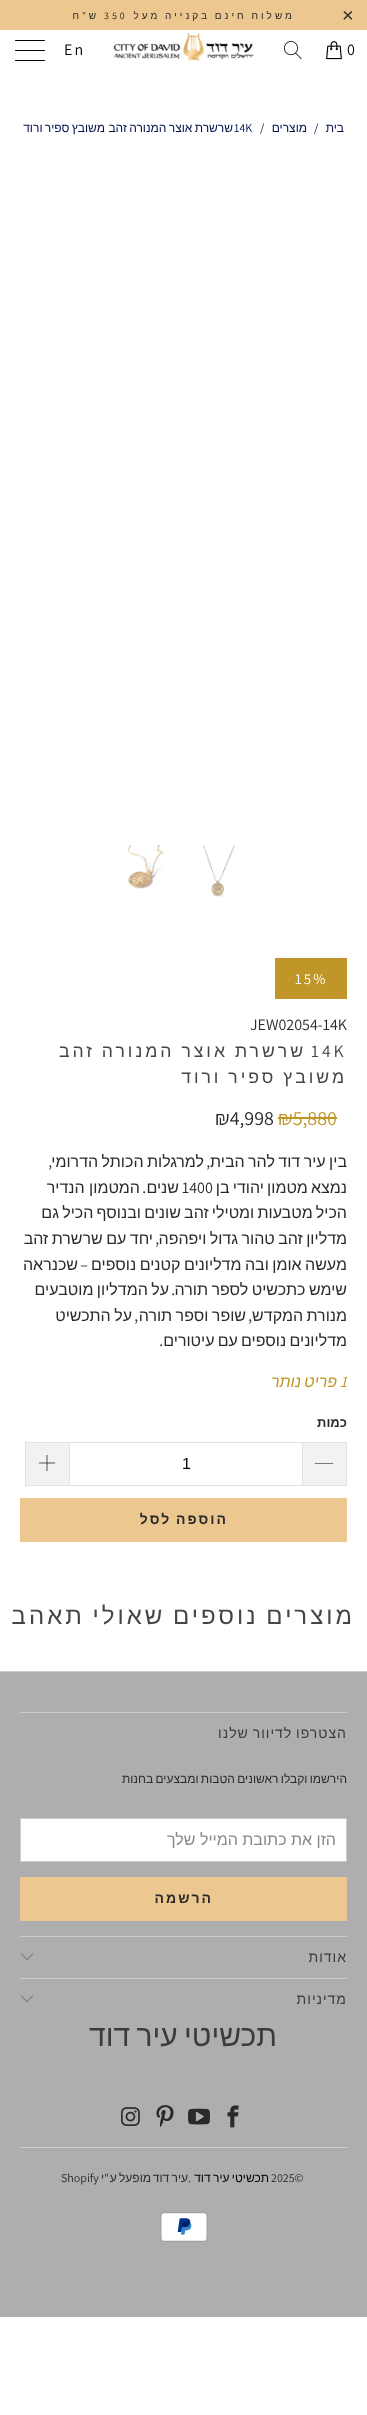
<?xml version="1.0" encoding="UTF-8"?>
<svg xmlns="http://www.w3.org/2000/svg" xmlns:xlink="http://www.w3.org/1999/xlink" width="367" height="2415">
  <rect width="100%" height="100%" fill="#ffffff" />
  <rect width="367" height="30" fill="#ecc790" />
  <image x="326" y="41" width="16" height="19" xlink:href="image1.png" />
  <image x="284" y="41" width="18" height="18" xlink:href="image2.png" />
  <image x="113" y="32" width="141" height="29" xlink:href="image3.png" />
  <rect x="15" y="40" width="30" height="1" rx="0.5" fill="#060000" />
  <rect x="15" y="50" width="30" height="1" rx="0.5" fill="#060000" />
  <rect x="15" y="60" width="30" height="1" rx="0.5" fill="#060000" />
  <image x="203" y="845" width="32" height="52" xlink:href="image4.png" />
  <image x="127" y="845" width="37" height="44" xlink:href="image5.png" />
  <rect x="275" y="958" width="72" height="41" fill="#c09628" />
  <rect x="278" y="1117" width="59" height="2" fill="#c09628" />
  <rect x="303" y="1443" width="43" height="42" fill="#f2f2f2" />
  <rect x="303" y="1442" width="44" height="1" fill="#e2e2e2" />
  <rect x="346" y="1442" width="1" height="44" fill="#e2e2e2" />
  <rect x="303" y="1485" width="44" height="1" fill="#e2e2e2" />
  <path d="M 315 1463 h 18 v 0.5 h -18 z" fill="#000000" />
  <rect x="69.5" y="1442.5" width="233" height="43" fill="none" stroke="#e2e2e2" />
  <rect x="26" y="1443" width="43" height="42" fill="#f2f2f2" />
  <rect x="25" y="1442" width="44" height="1" fill="#e2e2e2" />
  <rect x="25" y="1485" width="44" height="1" fill="#e2e2e2" />
  <rect x="25" y="1442" width="1" height="44" fill="#e2e2e2" />
  <image x="39" y="1455" width="16" height="16" xlink:href="image6.png" />
  <rect x="20" y="1498" width="327" height="44" fill="#ecc790" />
  <rect y="1672" width="367" height="645" fill="#aeaeaf" />
  <rect y="1671" width="367" height="1" fill="#cccccc" />
  <rect x="20" y="1712" width="327" height="1" fill="#cccccc" />
  <rect x="20.5" y="1818.5" width="326" height="43" fill="#ffffff" stroke="#cccccc" />
  <rect x="20" y="1877" width="327" height="44" fill="#ecc790" />
  <rect x="20" y="1936" width="327" height="1" fill="#cccccc" />
  <image x="21" y="1953" width="12" height="7" xlink:href="image7.png" />
  <rect x="20" y="1978" width="327" height="1" fill="#cccccc" />
  <image x="21" y="1995" width="12" height="7" xlink:href="image7.png" />
  <image x="227" y="2105" width="12" height="23" xlink:href="image8.png" />
  <image x="188" y="2108" width="22" height="17" xlink:href="image9.png" />
  <image x="156" y="2105" width="18" height="22" xlink:href="image10.png" />
  <image x="121" y="2107" width="19" height="19" xlink:href="image11.png" />
  <rect x="20" y="2147" width="327" height="1" fill="#cccccc" />
  <image x="160" y="2212" width="48" height="30" xlink:href="image12.png" />
  <text x="342" y="22" style="font-family: Liberation Sans; font-size: 20px; letter-spacing: 3px; fill: #2b2a2a">×</text>
  <text x="295" y="19" word-spacing="-1" style="font-family: Liberation Sans; font-size: 10px; letter-spacing: 3px; direction: rtl; fill: #2b2a2a">משלוח חינם בקנייה מעל</text>
  <text x="104" y="19" style="font-family: Assistant; font-size: 10px; letter-spacing: 3px; fill: #2b2a2a">350</text>
  <text x="99" y="19" style="font-family: Liberation Sans; font-size: 10px; letter-spacing: 3px; direction: rtl; fill: #2b2a2a">ש</text>
  <text x="89" y="19" style="font-family: Assistant; font-size: 10px; letter-spacing: 3px; direction: rtl; fill: #2b2a2a">"</text>
  <text x="82" y="19" style="font-family: Liberation Sans; font-size: 10px; letter-spacing: 3px; direction: rtl; fill: #2b2a2a">ח</text>
  <text x="347" y="55" style="font-family: Assistant; font-size: 16px; letter-spacing: 2px; fill: #060000">0</text>
  <text x="64" y="55" style="font-family: Assistant; font-size: 16px; letter-spacing: 2px; fill: #060000">En</text>
  <text x="344" y="132" style="font-family: Liberation Sans; font-size: 12px; direction: rtl; fill: #020f4c">בית</text>
  <text x="314" y="132" style="font-family: Assistant; font-size: 12px; fill: #020f4c">/</text>
  <text x="307" y="132" style="font-family: Liberation Sans; font-size: 12px; direction: rtl; fill: #020f4c">מוצרים</text>
  <text x="260" y="132" style="font-family: Assistant; font-size: 12px; fill: #020f4c">/</text>
  <text x="233" y="132" word-spacing="-1" style="font-family: Liberation Sans; font-size: 12px; direction: rtl; fill: #020f4c">שרשרת אוצר המנורה זהב</text>
  <text x="234" y="132" style="font-family: Assistant; font-size: 12px; fill: #020f4c">14K</text>
  <text x="105" y="132" word-spacing="-1" style="font-family: Liberation Sans; font-size: 12px; direction: rtl; fill: #020f4c">משובץ ספיר ורוד</text>
  <text x="295" y="984" style="font-family: Assistant; font-size: 15px; letter-spacing: 2px; fill: #ffffff">15%</text>
  <text x="250" y="1030" style="font-family: Assistant; font-size: 16px; fill: #2b2a2a">JEW02054-14K</text>
  <text x="311" y="1057" style="font-family: Assistant; font-size: 17.6px; letter-spacing: 3px; fill: #454545">14K</text>
  <text x="306" y="1057" word-spacing="-1" style="font-family: Liberation Sans; font-size: 17.6px; letter-spacing: 3px; direction: rtl; fill: #454545">שרשרת אוצר המנורה זהב</text>
  <text x="347" y="1083" word-spacing="-1" style="font-family: Liberation Sans; font-size: 17.6px; letter-spacing: 3px; direction: rtl; fill: #454545">משובץ ספיר ורוד</text>
  <text x="278" y="1125" style="font-family: Assistant; font-size: 20px; fill: #c09628">₪5,880</text>
  <text x="215" y="1125" style="font-family: Assistant; font-size: 20px; fill: #2b2a2a">₪4,998</text>
  <text x="347" y="1167" word-spacing="-1" style="font-family: Liberation Sans; font-size: 16px; direction: rtl; fill: #2b2a2a">בין עיר דוד להר הבית</text>
  <text x="210" y="1167" style="font-family: Assistant; font-size: 16px; direction: rtl; fill: #2b2a2a">,</text>
  <text x="204" y="1167" word-spacing="-1" style="font-family: Liberation Sans; font-size: 16px; direction: rtl; fill: #2b2a2a">למרגלות הכותל הדרומי</text>
  <text x="52" y="1167" style="font-family: Assistant; font-size: 16px; direction: rtl; fill: #2b2a2a">,</text>
  <text x="347" y="1193" word-spacing="-1.25" style="font-family: Liberation Sans; font-size: 16px; direction: rtl; fill: #2b2a2a">נמצא מטמון יהודי בן</text>
  <text x="182" y="1193" style="font-family: Assistant; font-size: 16px; fill: #2b2a2a">1400</text>
  <text x="179" y="1193" style="font-family: Liberation Sans; font-size: 16px; direction: rtl; fill: #2b2a2a">שנים</text>
  <text x="146" y="1193" style="font-family: Assistant; font-size: 16px; direction: rtl; fill: #2b2a2a">.</text>
  <text x="140" y="1193" style="font-family: Liberation Sans; font-size: 16px; direction: rtl; fill: #2b2a2a">המטמון הנדיר</text>
  <text x="347" y="1218" word-spacing="-1.25" style="font-family: Liberation Sans; font-size: 16px; direction: rtl; fill: #2b2a2a">הכיל מטבעות ומטילי זהב שונים ובנוסף הכיל גם</text>
  <text x="347" y="1244" word-spacing="-1" style="font-family: Liberation Sans; font-size: 16px; direction: rtl; fill: #2b2a2a">מדליון זהב טהור גדול ויפהפה</text>
  <text x="159" y="1244" style="font-family: Assistant; font-size: 16px; direction: rtl; fill: #2b2a2a">,</text>
  <text x="153" y="1244" word-spacing="-1" style="font-family: Liberation Sans; font-size: 16px; direction: rtl; fill: #2b2a2a">יחד עם שרשרת זהב</text>
  <text x="347" y="1270" word-spacing="-1" style="font-family: Liberation Sans; font-size: 16px; direction: rtl; fill: #2b2a2a">מעשה אומן ובה מדליונים קטנים נוספים</text>
  <text x="88" y="1270" style="font-family: Assistant; font-size: 16px; direction: rtl; fill: #2b2a2a">–</text>
  <text x="78" y="1270" style="font-family: Liberation Sans; font-size: 16px; direction: rtl; fill: #2b2a2a">שכנראה</text>
  <text x="347" y="1295" word-spacing="-1" style="font-family: Liberation Sans; font-size: 16px; direction: rtl; fill: #2b2a2a">שימש כתכשיט לספר תורה</text>
  <text x="175" y="1295" style="font-family: Assistant; font-size: 16px; direction: rtl; fill: #2b2a2a">.</text>
  <text x="169" y="1295" word-spacing="-1" style="font-family: Liberation Sans; font-size: 16px; direction: rtl; fill: #2b2a2a">על המדליון מוטבעים</text>
  <text x="347" y="1321" word-spacing="-1" style="font-family: Liberation Sans; font-size: 16px; direction: rtl; fill: #2b2a2a">מנורת המקדש</text>
  <text x="252" y="1321" style="font-family: Assistant; font-size: 16px; direction: rtl; fill: #2b2a2a">,</text>
  <text x="246" y="1321" word-spacing="-1" style="font-family: Liberation Sans; font-size: 16px; direction: rtl; fill: #2b2a2a">שופר וספר תורה</text>
  <text x="138" y="1321" style="font-family: Assistant; font-size: 16px; direction: rtl; fill: #2b2a2a">,</text>
  <text x="132" y="1321" word-spacing="-1" style="font-family: Liberation Sans; font-size: 16px; direction: rtl; fill: #2b2a2a">על התכשיט</text>
  <text x="347" y="1346" word-spacing="-1.25" style="font-family: Liberation Sans; font-size: 16px; direction: rtl; fill: #2b2a2a">מדליונים נוספים עם עיטורים</text>
  <text x="163" y="1346" style="font-family: Assistant; font-size: 16px; direction: rtl; fill: #2b2a2a">.</text>
  <text x="340" y="1387" style="font-family: Assistant; font-size: 16px; font-style: italic; fill: #c09628">1</text>
  <text x="337" y="1387" word-spacing="-1.25" style="font-family: Liberation Sans; font-size: 16px; font-style: italic; direction: rtl; fill: #c09628">פריט נותר</text>
  <text x="347" y="1427" style="font-family: Liberation Sans; font-size: 13px; font-weight: bold; direction: rtl; fill: #2b2a2a">כמות</text>
  <text x="182" y="1469" style="font-family: Liberation Sans; font-size: 16px; fill: #000000">1</text>
  <text x="228" y="1524" word-spacing="-1" style="font-family: Liberation Sans; font-size: 14px; font-weight: bold; letter-spacing: 2px; direction: rtl; fill: #2b2a2a">הוספה לסל</text>
  <text x="355" y="1624" word-spacing="-2" style="font-family: Liberation Sans; font-size: 24px; letter-spacing: 3px; direction: rtl; fill: #454545">מוצרים נוספים שאולי תאהב</text>
  <text x="347" y="1738" word-spacing="-1" style="font-family: Liberation Sans; font-size: 14px; letter-spacing: 1px; direction: rtl; fill: #3b3b3b">הצטרפו לדיוור שלנו</text>
  <text x="347" y="1783" word-spacing="-1" style="font-family: Liberation Sans; font-size: 12px; direction: rtl; fill: #2b2a2a">הירשמו וקבלו ראשונים הטבות ומבצעים בחנות</text>
  <text x="336" y="1845" style="font-family: Liberation Sans; font-size: 16px; direction: rtl; fill: #888888">הזן את כתובת המייל שלך</text>
  <text x="213" y="1903" style="font-family: Liberation Sans; font-size: 14px; font-weight: bold; letter-spacing: 2px; direction: rtl; fill: #2b2a2a">הרשמה</text>
  <text x="347" y="1962" style="font-family: Liberation Sans; font-size: 14px; letter-spacing: 1px; direction: rtl; fill: #3b3b3b">אודות</text>
  <text x="347" y="2004" style="font-family: Liberation Sans; font-size: 14px; letter-spacing: 1px; direction: rtl; fill: #3b3b3b">מדיניות</text>
  <text x="277" y="2046" word-spacing="-2" style="font-family: Liberation Sans; font-size: 30px; direction: rtl; fill: #3b3b3b">תכשיטי עיר דוד</text>
  <text x="271" y="2182" style="font-family: Assistant; font-size: 12px; fill: #2b2a2a">2025©</text>
  <text x="269" y="2182" word-spacing="-1" style="font-family: Liberation Sans; font-size: 12px; direction: rtl; fill: #060000">תכשיטי עיר דוד</text>
  <text x="188" y="2182" style="font-family: Assistant; font-size: 12px; fill: #2b2a2a">.</text>
  <text x="188" y="2182" word-spacing="-1" style="font-family: Liberation Sans; font-size: 12px; direction: rtl; fill: #2b2a2a">עיר דוד</text>
  <text x="151" y="2182" word-spacing="-1" style="font-family: Liberation Sans; font-size: 12px; direction: rtl; fill: #2b2a2a">מופעל ע</text>
  <text x="109" y="2182" style="font-family: Assistant; font-size: 12px; direction: rtl; fill: #2b2a2a">"</text>
  <text x="104" y="2182" style="font-family: Liberation Sans; font-size: 12px; direction: rtl; fill: #2b2a2a">י</text>
  <text x="61" y="2182" style="font-family: Assistant; font-size: 12px; fill: #2b2a2a">Shopify</text>
</svg>
